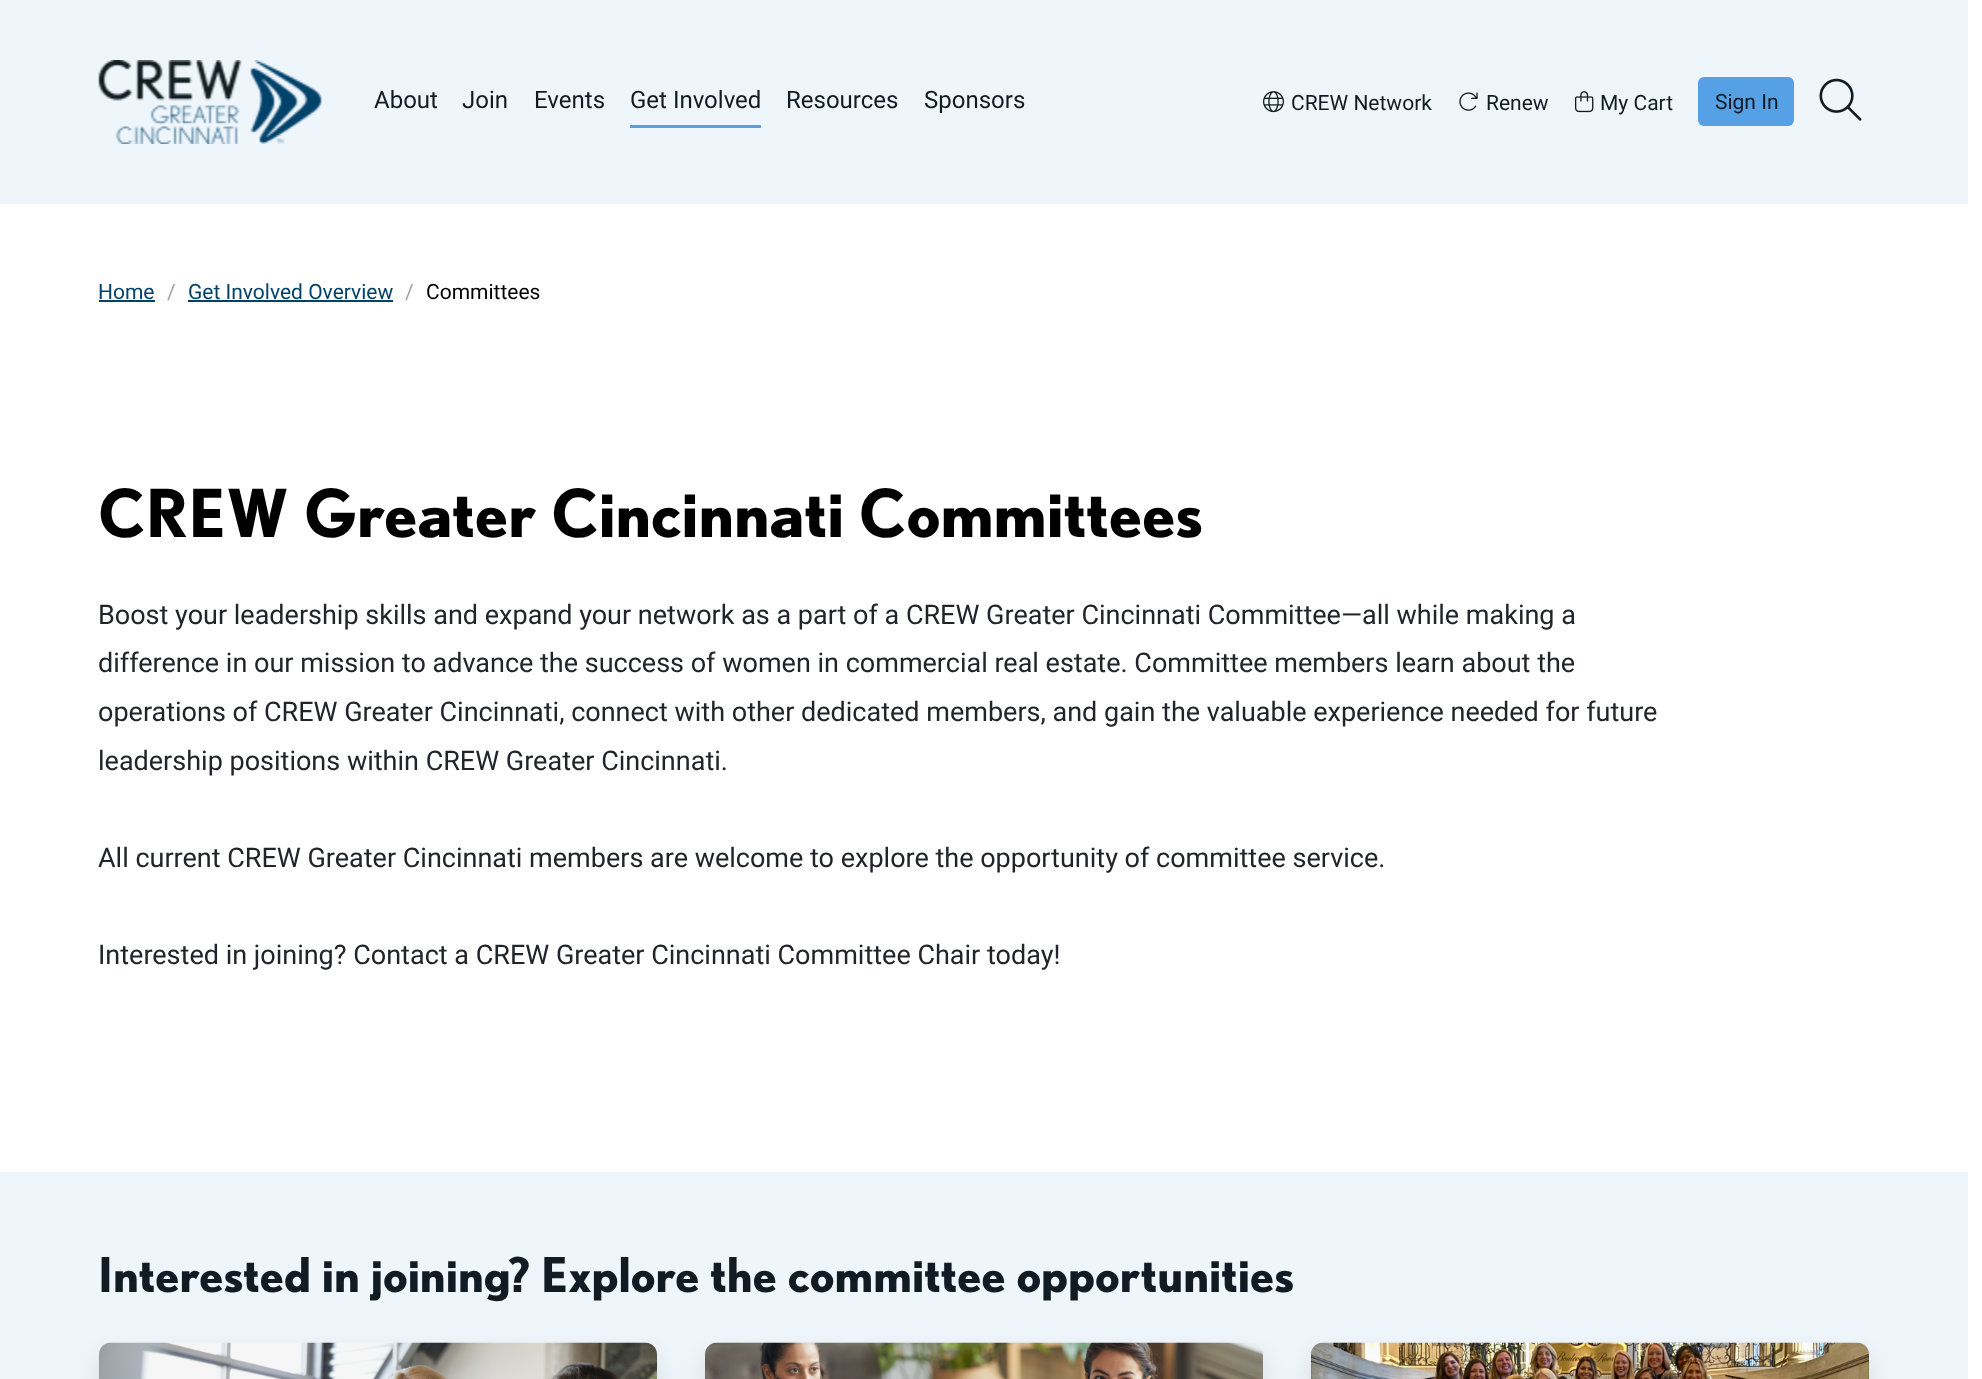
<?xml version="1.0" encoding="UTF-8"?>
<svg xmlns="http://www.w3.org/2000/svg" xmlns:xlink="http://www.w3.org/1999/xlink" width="1982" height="1379">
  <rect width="100%" height="100%" fill="#ffffff" />
  <rect width="1968" height="204" fill="#eef6fc" />
  <image x="98" y="60" width="224" height="84" xlink:href="image1.png" />
  <rect x="630" y="125" width="131" height="3" fill="#56a0e6" />
  <image x="1263" y="91" width="21" height="22" xlink:href="image2.png" />
  <image x="1459" y="92" width="19" height="19" xlink:href="image3.png" />
  <image x="1575" y="91" width="19" height="22" xlink:href="image4.png" />
  <rect x="1698" y="77" width="96" height="49" rx="6" fill="#56a0e6" />
  <image x="1819" y="78" width="43" height="43" xlink:href="image5.png" />
  <rect x="99" y="300" width="56" height="2" fill="#01426a" />
  <rect x="188" y="300" width="205" height="2" fill="#01426a" />
  <rect y="1172" width="1968" height="207" fill="#eef6fc" />
  <rect x="99" y="1355" width="558" height="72" rx="12" fill="#000000" fill-opacity="0.1" filter="blur(12px)" />
  <image x="99" y="1342" width="558" height="37" xlink:href="image6.png" />
  <rect x="705" y="1355" width="558" height="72" rx="12" fill="#000000" fill-opacity="0.1" filter="blur(12px)" />
  <image x="705" y="1342" width="558" height="37" xlink:href="image7.png" />
  <rect x="1311" y="1355" width="558" height="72" rx="12" fill="#000000" fill-opacity="0.1" filter="blur(12px)" />
  <image x="1311" y="1342" width="558" height="37" xlink:href="image8.png" />
  <text x="374" y="108" style="font-family: Roboto; font-size: 24px; fill: #101b23">About</text>
  <text x="462" y="108" style="font-family: Roboto; font-size: 24px; fill: #101b23">Join</text>
  <text x="534" y="108" style="font-family: Roboto; font-size: 24px; fill: #101b23">Events</text>
  <text x="630" y="108" style="font-family: Roboto; font-size: 24px; fill: #101b23">Get Involved</text>
  <text x="786" y="108" style="font-family: Roboto; font-size: 24px; fill: #101b23">Resources</text>
  <text x="924" y="108" style="font-family: Roboto; font-size: 24px; fill: #101b23">Sponsors</text>
  <text x="1291" y="110" style="font-family: Roboto; font-size: 21px; fill: #101b23">CREW Network</text>
  <text x="1486" y="110" style="font-family: Roboto; font-size: 21px; fill: #101b23">Renew</text>
  <text x="1600" y="110" style="font-family: Roboto; font-size: 21px; fill: #101b23">My Cart</text>
  <text x="1715" y="109" style="font-family: Roboto; font-size: 21px; fill: #101b23">Sign In</text>
  <text x="98" y="299" style="font-family: Roboto; font-size: 21px; fill: #01426a">Home</text>
  <text x="167" y="299" style="font-family: Roboto; font-size: 21px; fill: #9fa4a7">/</text>
  <text x="188" y="299" style="font-family: Roboto; font-size: 21px; fill: #01426a">Get Involved Overview</text>
  <text x="405" y="299" style="font-family: Roboto; font-size: 21px; fill: #9fa4a7">/</text>
  <text x="426" y="299" style="font-family: Roboto; font-size: 21px; fill: #000000">Committees</text>
  <text x="98" y="537" style="font-family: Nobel; font-size: 66px; font-weight: bold; fill: #000000">CREW Greater Cincinnati Committees</text>
  <text x="98" y="624" style="font-family: Roboto; font-size: 27px; fill: #212529">Boost your leadership skills and expand your network as a part of a CREW Greater Cincinnati Committee—all while making a</text>
  <text x="98" y="672" style="font-family: Roboto; font-size: 27px; fill: #212529">difference in our mission to advance the success of women in commercial real estate. Committee members learn about the</text>
  <text x="98" y="721" style="font-family: Roboto; font-size: 27px; fill: #212529">operations of CREW Greater Cincinnati, connect with other dedicated members, and gain the valuable experience needed for future</text>
  <text x="98" y="770" style="font-family: Roboto; font-size: 27px; fill: #212529">leadership positions within CREW Greater Cincinnati.</text>
  <text x="98" y="867" style="font-family: Roboto; font-size: 27px; fill: #212529">All current CREW Greater Cincinnati members are welcome to explore the opportunity of committee service.</text>
  <text x="98" y="964" style="font-family: Roboto; font-size: 27px; fill: #212529">Interested in joining? Contact a CREW Greater Cincinnati Committee Chair today!</text>
  <text x="98" y="1292" style="font-family: Nobel; font-size: 48px; font-weight: bold; fill: #101b23">Interested in joining? Explore the committee opportunities</text>
</svg>
